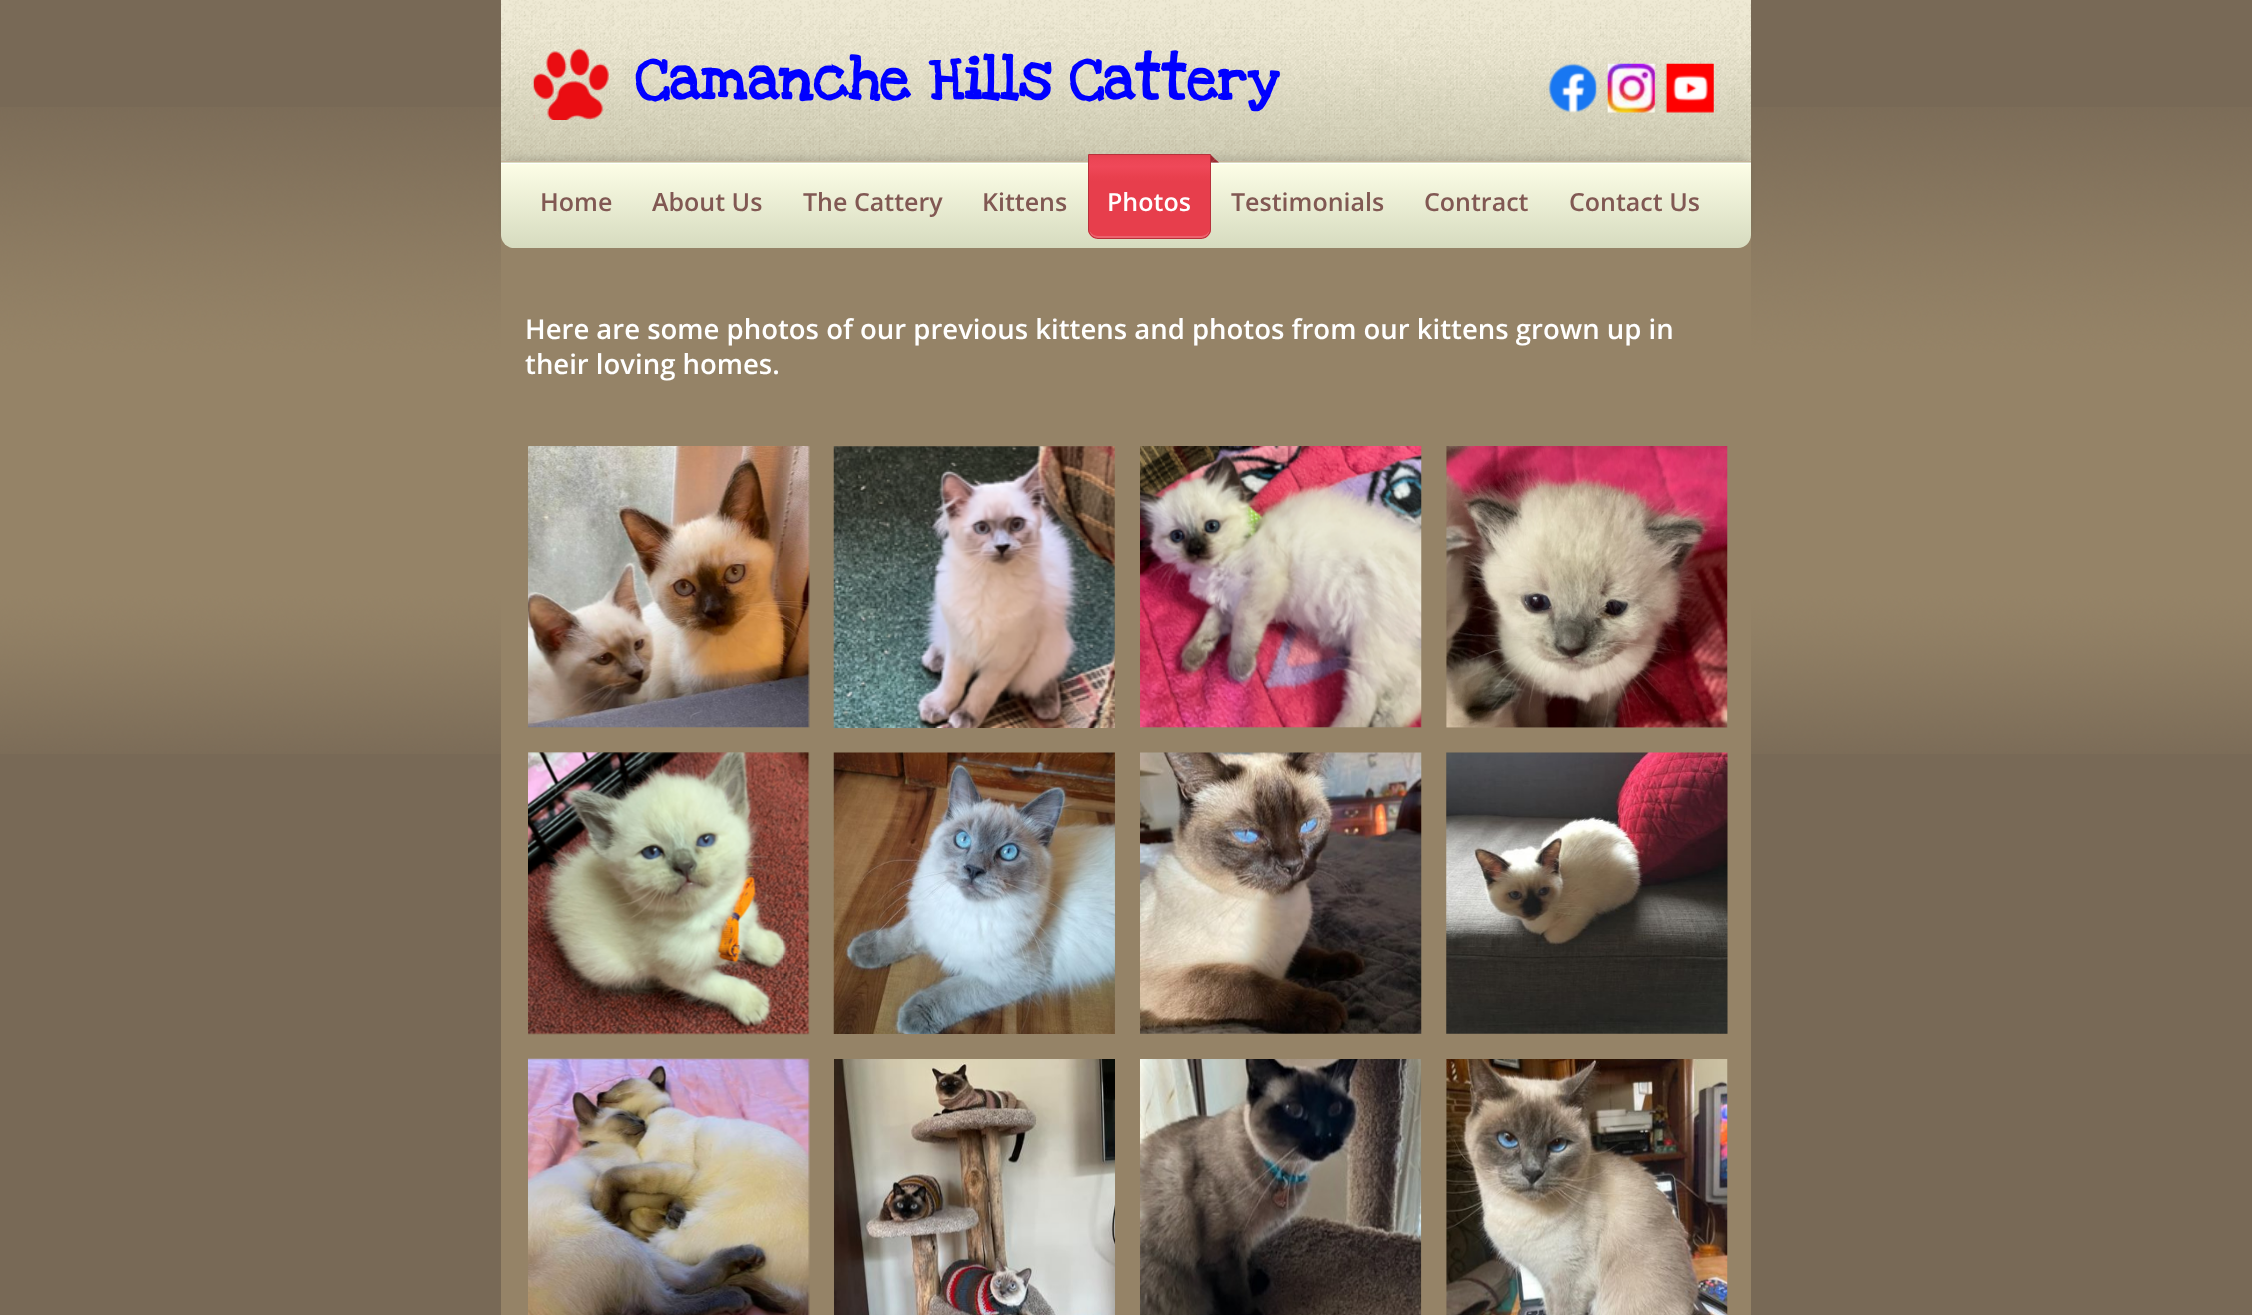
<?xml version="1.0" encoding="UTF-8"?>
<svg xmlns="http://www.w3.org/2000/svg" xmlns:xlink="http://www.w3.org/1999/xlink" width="2252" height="1315">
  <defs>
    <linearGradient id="g1" gradientUnits="userSpaceOnUse" x1="1126" y1="77" x2="1126" y2="163"><stop offset="0" stop-color="#fdfee7" /><stop offset="1" stop-color="#d6dbbf" /></linearGradient>
    <linearGradient id="g2" gradientUnits="userSpaceOnUse" x1="1126" y1="162" x2="1126" y2="248"><stop offset="0" stop-color="#fdfee7" /><stop offset="1" stop-color="#d6dbbf" /></linearGradient>
    <clipPath id="clip1"><path d="M 1088 154 h 123 v 75 c 0 5.5 -4.5 10 -10 10 h -103 c -5.5 0 -10 -4.5 -10 -10 z" /></clipPath>
    <linearGradient id="g3" gradientUnits="userSpaceOnUse" x1="1149" y1="155" x2="1149" y2="238"><stop offset="0" stop-color="#e9404e" /><stop offset="0.06" stop-color="#ec4555" /><stop offset="0.14" stop-color="#ef4859" /><stop offset="0.26" stop-color="#e9404e" /><stop offset="0.32" stop-color="#e73e4c" /><stop offset="1" stop-color="#e73e4c" /></linearGradient>
  </defs>
  <rect width="100%" height="100%" fill="#786956" />
  <image x="0" y="107" width="2252" height="647" xlink:href="image1.png" />
  <rect x="501" y="235" width="1250" height="1080" fill="#958367" />
  <image x="501" y="0" width="1250" height="161" xlink:href="image2.png" />
  <image x="533" y="48" width="76" height="72" xlink:href="image3.png" />
  <image x="1548" y="63" width="49" height="50" xlink:href="image4.png" />
  <image x="1607" y="63" width="49" height="50" xlink:href="image5.png" />
  <image x="1665" y="63" width="49" height="50" xlink:href="image6.png" />
  <rect x="504" y="156" width="1245" height="82" rx="10" fill="#000000" fill-opacity="0.1" filter="blur(3px)" />
  <rect x="501" y="162" width="1250" height="1" fill="url(#g1)" />
  <path d="M 501 163 h 1250 v 72 c 0 7 -6 13 -13 13 h -1224 c -7 0 -13 -6 -13 -13 z" fill="url(#g2)" />
  <rect x="501" y="163" width="1250" height="1" fill="#ffffff" />
  <rect x="501" y="161" width="1250" height="1" fill="#c7b29a" />
  <g clip-path="url(#clip1)">
    <rect x="1088" y="155" width="123" height="83" fill="url(#g3)" />
  </g>
  <path d="M 1089 228 c 0 14 17 10 26 10 h 69 c 9 0 26 4 26 -10 c 0 4 -4 8 -9 8 h -103 c -5 0 -9 -4 -9 -8 z" fill="#ffffff" fill-opacity="0.2" />
  <path d="M 1088.5 154.5 h 122 v 74.5 c 0 5 -4.5 9.5 -9.5 9.5 h -103 c -5 0 -9.5 -4.5 -9.5 -9.5 z" fill="none" stroke="#b7313b" />
  <path d="M 1219 162.5 h -8 l 4 -3.5 z" fill="#9c2932" />
  <path d="M 1211 162.5 v -7.5 l 4 4 z" fill="#9c2932" />
  <image x="528" y="446" width="282" height="282" xlink:href="image7.png" />
  <image x="833" y="446" width="282" height="282" xlink:href="image8.png" />
  <image x="1140" y="446" width="282" height="282" xlink:href="image9.png" />
  <image x="1446" y="446" width="282" height="282" xlink:href="image10.png" />
  <image x="528" y="752" width="282" height="283" xlink:href="image11.png" />
  <image x="833" y="752" width="282" height="282" xlink:href="image12.png" />
  <image x="1140" y="752" width="282" height="282" xlink:href="image13.png" />
  <image x="1446" y="752" width="282" height="282" xlink:href="image14.png" />
  <image x="528" y="1058" width="282" height="257" xlink:href="image15.png" />
  <image x="834" y="1059" width="281" height="256" xlink:href="image16.png" />
  <image x="1140" y="1059" width="282" height="256" xlink:href="image17.png" />
  <image x="1446" y="1059" width="282" height="256" xlink:href="image18.png" />
  <text x="635" y="99" style="font-family: Love Ya Like A Sister; font-size: 60px; font-weight: bold; fill: #0000ff">Camanche Hills Cattery</text>
  <text x="540" y="211" style="font-family: Open Sans; font-size: 25px; font-weight: 600; fill: #815853">Home</text>
  <text x="652" y="211" style="font-family: Open Sans; font-size: 25px; font-weight: 600; fill: #815853">About Us</text>
  <text x="803" y="211" style="font-family: Open Sans; font-size: 25px; font-weight: 600; fill: #815853">The Cattery</text>
  <text x="982" y="211" style="font-family: Open Sans; font-size: 25px; font-weight: 600; fill: #815853">Kittens</text>
  <text x="1107" y="211" style="font-family: Open Sans; font-size: 25px; font-weight: 600; fill: #ffffff">Photos</text>
  <text x="1231" y="211" style="font-family: Open Sans; font-size: 25px; font-weight: 600; fill: #815853">Testimonials</text>
  <text x="1424" y="211" style="font-family: Open Sans; font-size: 25px; font-weight: 600; fill: #815853">Contract</text>
  <text x="1569" y="211" style="font-family: Open Sans; font-size: 25px; font-weight: 600; fill: #815853">Contact Us</text>
  <text x="525" y="339" style="font-family: Open Sans; font-size: 27.5px; font-weight: 600; fill: #ffffff">Here are some photos of our previous kittens and photos from our kittens grown up in</text>
  <text x="525" y="374" style="font-family: Open Sans; font-size: 27.5px; font-weight: 600; fill: #ffffff">their loving homes.</text>
</svg>
